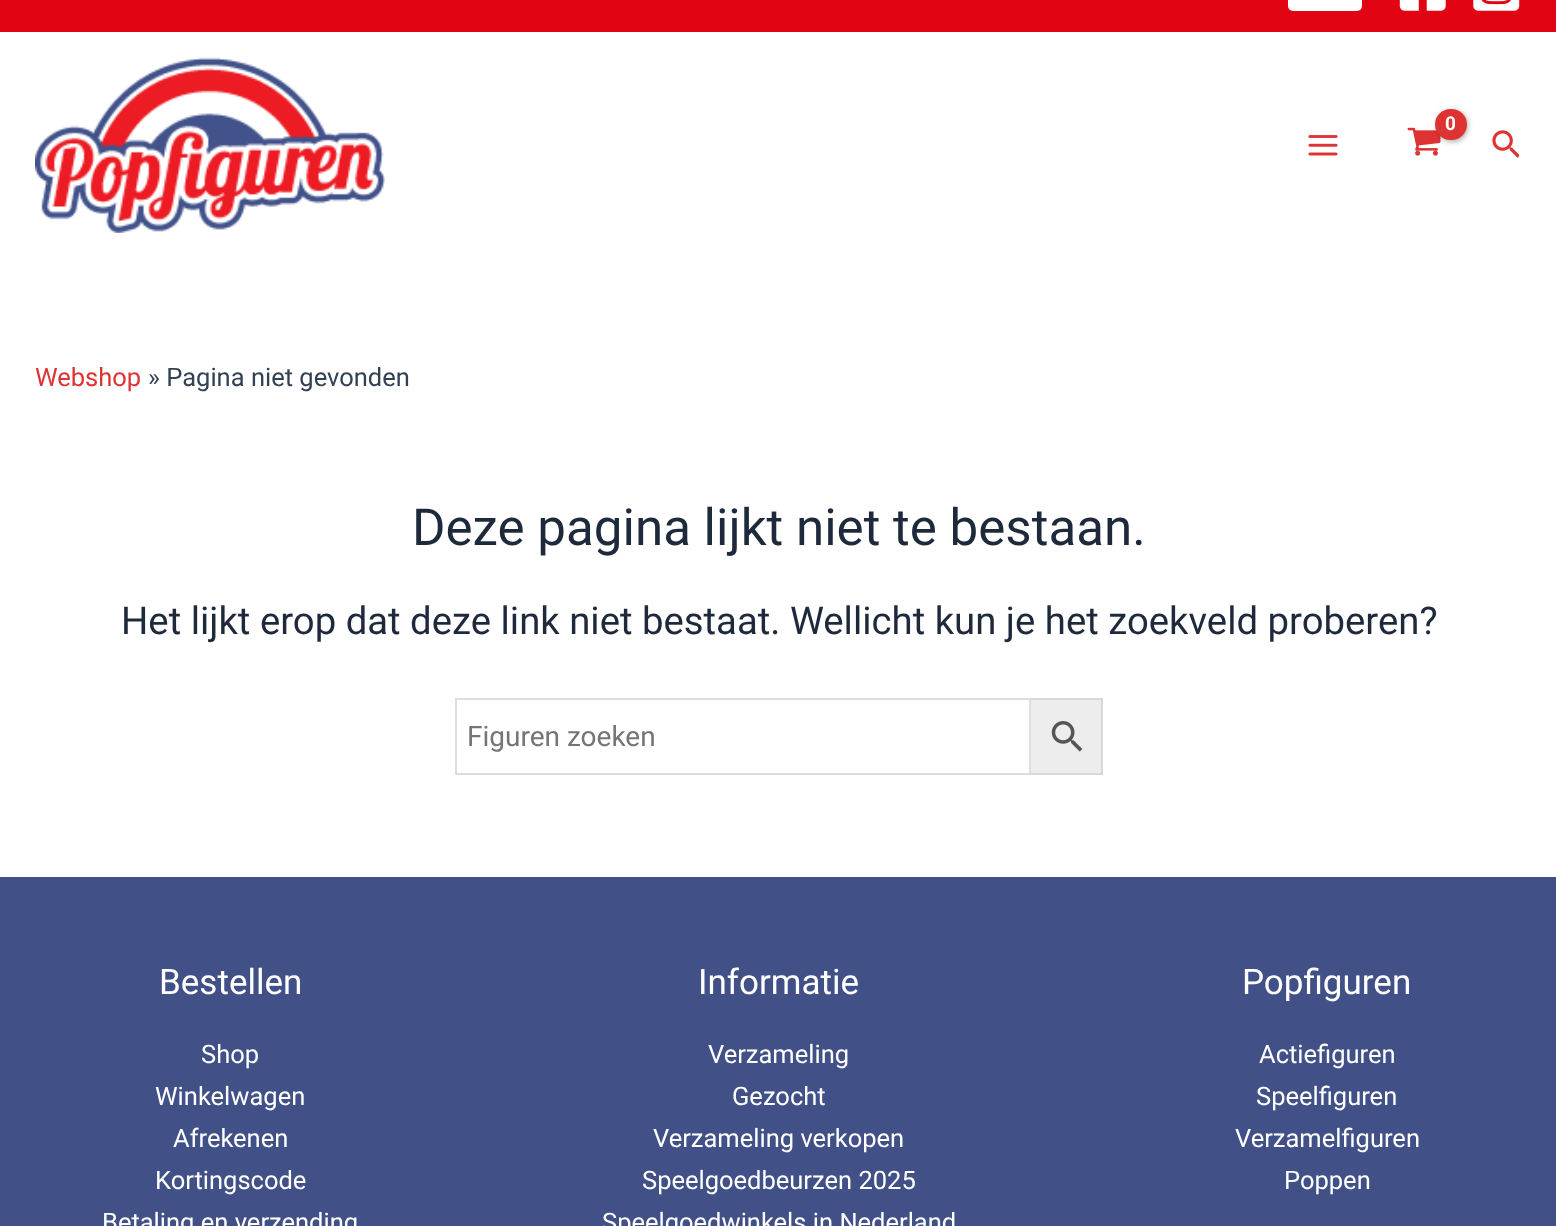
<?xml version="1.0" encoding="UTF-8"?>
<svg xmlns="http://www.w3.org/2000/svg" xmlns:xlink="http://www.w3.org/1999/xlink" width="1556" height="1226">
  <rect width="100%" height="100%" fill="#ffffff" />
  <rect width="1556" height="32" fill="#e10514" />
  <rect x="1288" y="-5" width="74" height="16" rx="5" fill="#ffffff" />
  <image x="1399" y="0" width="47" height="11" xlink:href="image1.png" />
  <image x="1473" y="0" width="47" height="11" xlink:href="image2.png" />
  <image x="35" y="57" width="350" height="176" xlink:href="image3.png" />
  <image x="1407" y="127" width="34" height="29" xlink:href="image4.png" />
  <rect x="1437" y="110" width="31" height="32" rx="15.5" fill="#000000" fill-opacity="0.3" filter="blur(2.5px)" />
  <rect x="1435" y="109" width="32" height="31" rx="15.5" fill="#de3333" />
  <image x="1308" y="135" width="30" height="21" xlink:href="image5.png" />
  <image x="1492" y="130" width="27" height="28" xlink:href="image6.png" />
  <rect x="1030" y="699" width="72" height="75" fill="#ededed" stroke="#d8d8d8" stroke-width="2" />
  <rect x="456" y="699" width="574" height="75" fill="none" stroke="#dddddd" stroke-width="2" />
  <image x="1051" y="721" width="32" height="31" xlink:href="image7.png" />
  <rect y="877" width="1556" height="349" fill="#415087" />
  <text x="1445" y="130" style="font-family: Roboto; font-size: 19px; font-weight: bold; letter-spacing: -1px; fill: #ffffff">0</text>
  <text x="35" y="386" style="font-family: Roboto; font-size: 25.5px; fill: #de3333">Webshop</text>
  <text x="148" y="386" style="font-family: Roboto; font-size: 25.5px; fill: #334155">» Pagina niet gevonden</text>
  <text x="412" y="545" style="font-family: Roboto; font-size: 51.1px; fill: #1e293b">Deze pagina lijkt niet te bestaan.</text>
  <text x="121" y="634" style="font-family: Roboto; font-size: 38.3px; fill: #1e293b">Het lijkt erop dat deze link niet bestaat. Wellicht kun je het zoekveld proberen?</text>
  <text x="467" y="746" style="font-family: Roboto; font-size: 28px; fill: #757575">Figuren zoeken</text>
  <text x="159" y="994" style="font-family: Roboto; font-size: 35px; fill: #ffffff">Bestellen</text>
  <text x="201" y="1063" style="font-family: Roboto; font-size: 25.5px; fill: #ffffff">Shop</text>
  <text x="155" y="1105" style="font-family: Roboto; font-size: 25.5px; fill: #ffffff">Winkelwagen</text>
  <text x="173" y="1147" style="font-family: Roboto; font-size: 25.5px; fill: #ffffff">Afrekenen</text>
  <text x="155" y="1189" style="font-family: Roboto; font-size: 25.5px; fill: #ffffff">Kortingscode</text>
  <text x="102" y="1231" style="font-family: Roboto; font-size: 25.5px; fill: #ffffff">Betaling en verzending</text>
  <text x="698" y="994" style="font-family: Roboto; font-size: 35px; fill: #ffffff">Informatie</text>
  <text x="708" y="1063" style="font-family: Roboto; font-size: 25.5px; fill: #ffffff">Verzameling</text>
  <text x="732" y="1105" style="font-family: Roboto; font-size: 25.5px; fill: #ffffff">Gezocht</text>
  <text x="653" y="1147" style="font-family: Roboto; font-size: 25.5px; fill: #ffffff">Verzameling verkopen</text>
  <text x="642" y="1189" style="font-family: Roboto; font-size: 25.5px; fill: #ffffff">Speelgoedbeurzen 2025</text>
  <text x="602" y="1231" style="font-family: Roboto; font-size: 25.5px; fill: #ffffff">Speelgoedwinkels in Nederland</text>
  <text x="1242" y="994" style="font-family: Roboto; font-size: 35px; fill: #ffffff">Popfiguren</text>
  <text x="1259" y="1063" style="font-family: Roboto; font-size: 25.5px; fill: #ffffff">Actiefiguren</text>
  <text x="1256" y="1105" style="font-family: Roboto; font-size: 25.5px; fill: #ffffff">Speelfiguren</text>
  <text x="1235" y="1147" style="font-family: Roboto; font-size: 25.5px; fill: #ffffff">Verzamelfiguren</text>
  <text x="1284" y="1189" style="font-family: Roboto; font-size: 25.5px; fill: #ffffff">Poppen</text>
</svg>
